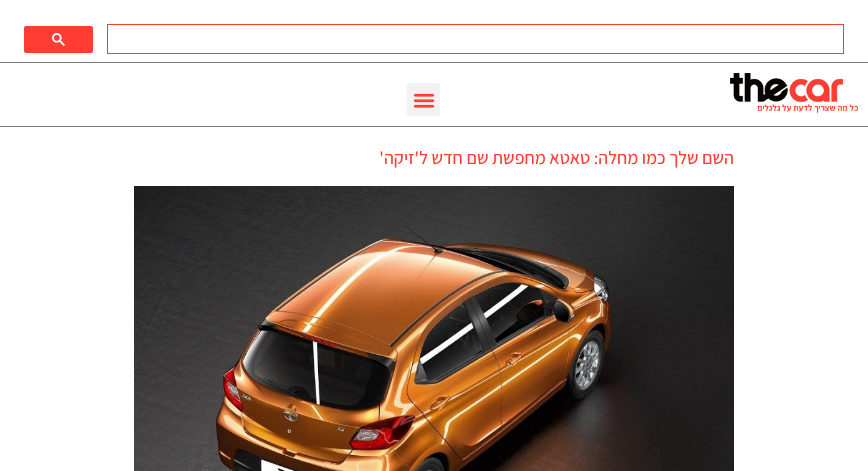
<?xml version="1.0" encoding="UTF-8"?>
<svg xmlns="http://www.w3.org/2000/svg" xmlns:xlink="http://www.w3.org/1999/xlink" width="868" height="471">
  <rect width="100%" height="100%" fill="#ffffff" />
  <rect x="107.5" y="24.5" width="736" height="29" fill="none" stroke="#ff3d32" />
  <rect x="24.5" y="26.5" width="68" height="26" rx="1.5" fill="#ff3d32" stroke="#ff3d32" />
  <image x="52" y="33" width="13" height="13" xlink:href="image1.png" />
  <rect y="62" width="868" height="1" fill="#7a7a7a" />
  <rect y="126" width="868" height="1" fill="#7a7a7a" />
  <image x="730" y="73" width="128" height="40" xlink:href="image2.png" />
  <rect x="407" y="83" width="33" height="33" rx="3" fill="#f2f2f2" />
  <image x="413" y="93" width="22" height="15" xlink:href="image3.png" />
  <image x="134" y="186" width="600" height="285" xlink:href="image4.png" />
  <text x="734" y="164" style="font-family: Assistant; font-size: 18px; font-weight: 500; direction: rtl; fill: #ff3d32">השם שלך כמו מחלה: טאטא מחפשת שם חדש ל'זיקה'</text>
</svg>
